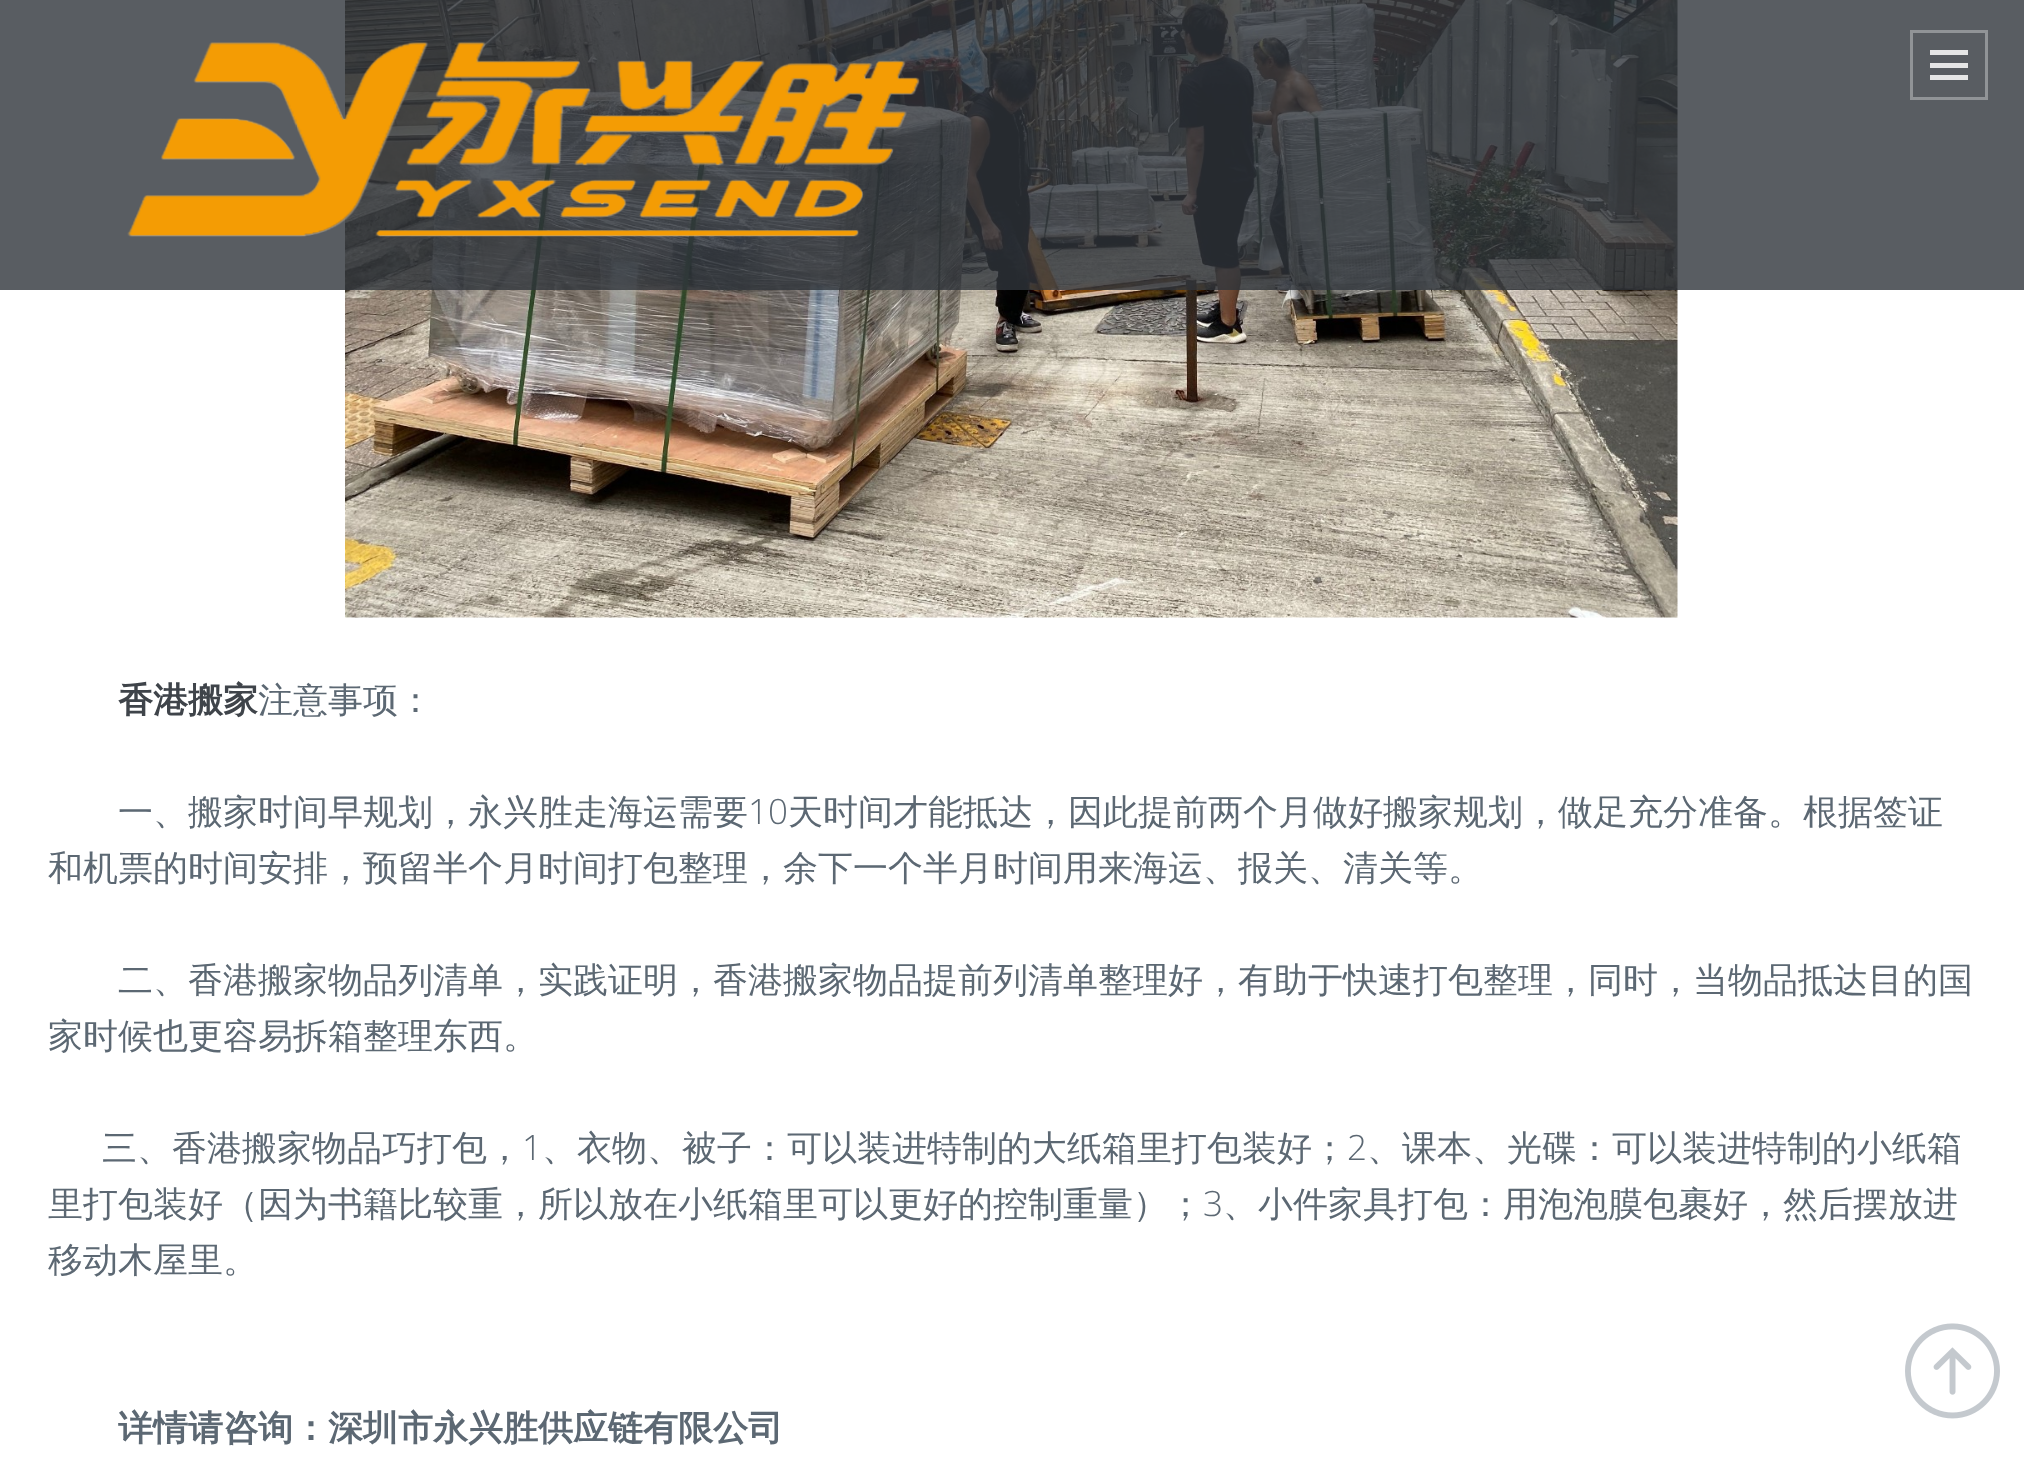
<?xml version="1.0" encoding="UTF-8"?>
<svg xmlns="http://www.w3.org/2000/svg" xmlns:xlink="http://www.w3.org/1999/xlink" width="2024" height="1475">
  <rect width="100%" height="100%" fill="#ffffff" />
  <image x="345" y="0" width="1333" height="618" xlink:href="image2.png" />
  <rect width="2024" height="290" fill="#2f353b" fill-opacity="0.8" />
  <image x="127" y="42" width="793" height="195" xlink:href="image1.png" />
  <rect x="1911.5" y="31.5" width="75" height="67" fill="none" stroke="#919497" stroke-width="3" />
  <rect x="1930" y="50" width="38" height="5" fill="#e6e6e6" />
  <rect x="1930" y="63" width="38" height="5" fill="#e6e6e6" />
  <rect x="1930" y="75" width="38" height="5" fill="#e6e6e6" />
  <image x="1905" y="1323" width="95" height="96" xlink:href="image3.png" />
  <text x="118" y="712" style="font-family: WenQuanYi Zen Hei; font-size: 35px; font-weight: bold; fill: #3f444a">香港搬家</text>
  <text x="258" y="712" style="font-family: WenQuanYi Zen Hei; font-size: 35px; font-weight: 500; fill: #5c6873">注意事项：</text>
  <text x="118" y="824" style="font-family: WenQuanYi Zen Hei; font-size: 35px; font-weight: 500; fill: #5c6873">一、搬家时间早规划，永兴胜走海运需要</text>
  <text x="748" y="824" style="font-family: Open Sans; font-size: 35px; font-weight: 300; fill: #5c6873">10</text>
  <text x="788" y="824" style="font-family: WenQuanYi Zen Hei; font-size: 35px; font-weight: 500; fill: #5c6873">天时间才能抵达，因此提前两个月做好搬家规划，做足充分准备。根据签证</text>
  <text x="48" y="880" style="font-family: WenQuanYi Zen Hei; font-size: 35px; font-weight: 500; fill: #5c6873">和机票的时间安排，预留半个月时间打包整理，余下一个半月时间用来海运、报关、清关等。</text>
  <text x="118" y="992" style="font-family: WenQuanYi Zen Hei; font-size: 35px; font-weight: 500; fill: #5c6873">二、香港搬家物品列清单，实践证明，香港搬家物品提前列清单整理好，有助于快速打包整理，同时，当物品抵达目的国</text>
  <text x="48" y="1048" style="font-family: WenQuanYi Zen Hei; font-size: 35px; font-weight: 500; fill: #5c6873">家时候也更容易拆箱整理东西。</text>
  <text x="102" y="1160" style="font-family: WenQuanYi Zen Hei; font-size: 35px; font-weight: 500; fill: #5c6873">三、香港搬家物品巧打包，</text>
  <text x="522" y="1160" style="font-family: Open Sans; font-size: 35px; font-weight: 300; fill: #5c6873">1</text>
  <text x="542" y="1160" style="font-family: WenQuanYi Zen Hei; font-size: 35px; font-weight: 500; fill: #5c6873">、衣物、被子：可以装进特制的大纸箱里打包装好；</text>
  <text x="1347" y="1160" style="font-family: Open Sans; font-size: 35px; font-weight: 300; fill: #5c6873">2</text>
  <text x="1367" y="1160" style="font-family: WenQuanYi Zen Hei; font-size: 35px; font-weight: 500; fill: #5c6873">、课本、光碟：可以装进特制的小纸箱</text>
  <text x="48" y="1216" style="font-family: WenQuanYi Zen Hei; font-size: 35px; font-weight: 500; fill: #5c6873">里打包装好（因为书籍比较重，所以放在小纸箱里可以更好的控制重量）；</text>
  <text x="1203" y="1216" style="font-family: Open Sans; font-size: 35px; font-weight: 300; fill: #5c6873">3</text>
  <text x="1223" y="1216" style="font-family: WenQuanYi Zen Hei; font-size: 35px; font-weight: 500; fill: #5c6873">、小件家具打包：用泡泡膜包裹好，然后摆放进</text>
  <text x="48" y="1272" style="font-family: WenQuanYi Zen Hei; font-size: 35px; font-weight: 500; fill: #5c6873">移动木屋里。</text>
  <text x="118" y="1440" style="font-family: WenQuanYi Zen Hei; font-size: 35px; font-weight: bold; fill: #5c6873">详情请咨询：深圳市永兴胜供应链有限公司</text>
</svg>
